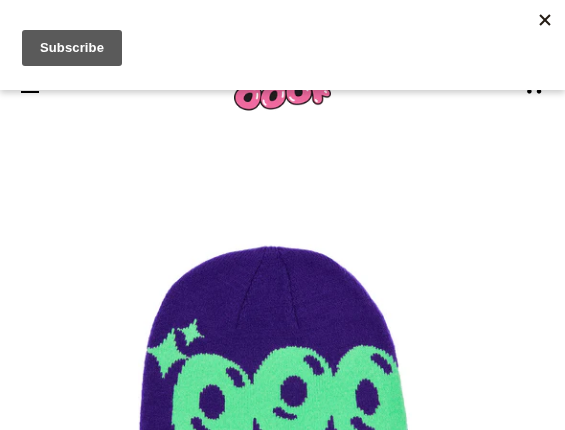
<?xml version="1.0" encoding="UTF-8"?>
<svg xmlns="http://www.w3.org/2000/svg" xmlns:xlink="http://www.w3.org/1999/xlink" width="565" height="430">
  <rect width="100%" height="100%" fill="#ffffff" />
  <rect x="21" y="91" width="18" height="2" fill="#000000" />
  <image x="234" y="90" width="97" height="21" xlink:href="image2.png" />
  <image x="527" y="90" width="15" height="4" xlink:href="image3.png" />
  <rect y="3" width="565" height="90" fill="#000000" fill-opacity="0.2" filter="blur(3px)" />
  <rect width="565" height="90" fill="#ffffff" />
  <image x="22" y="14" width="529" height="52" xlink:href="image1.png" />
  <image x="138" y="244" width="274" height="186" xlink:href="image4.png" />
</svg>
